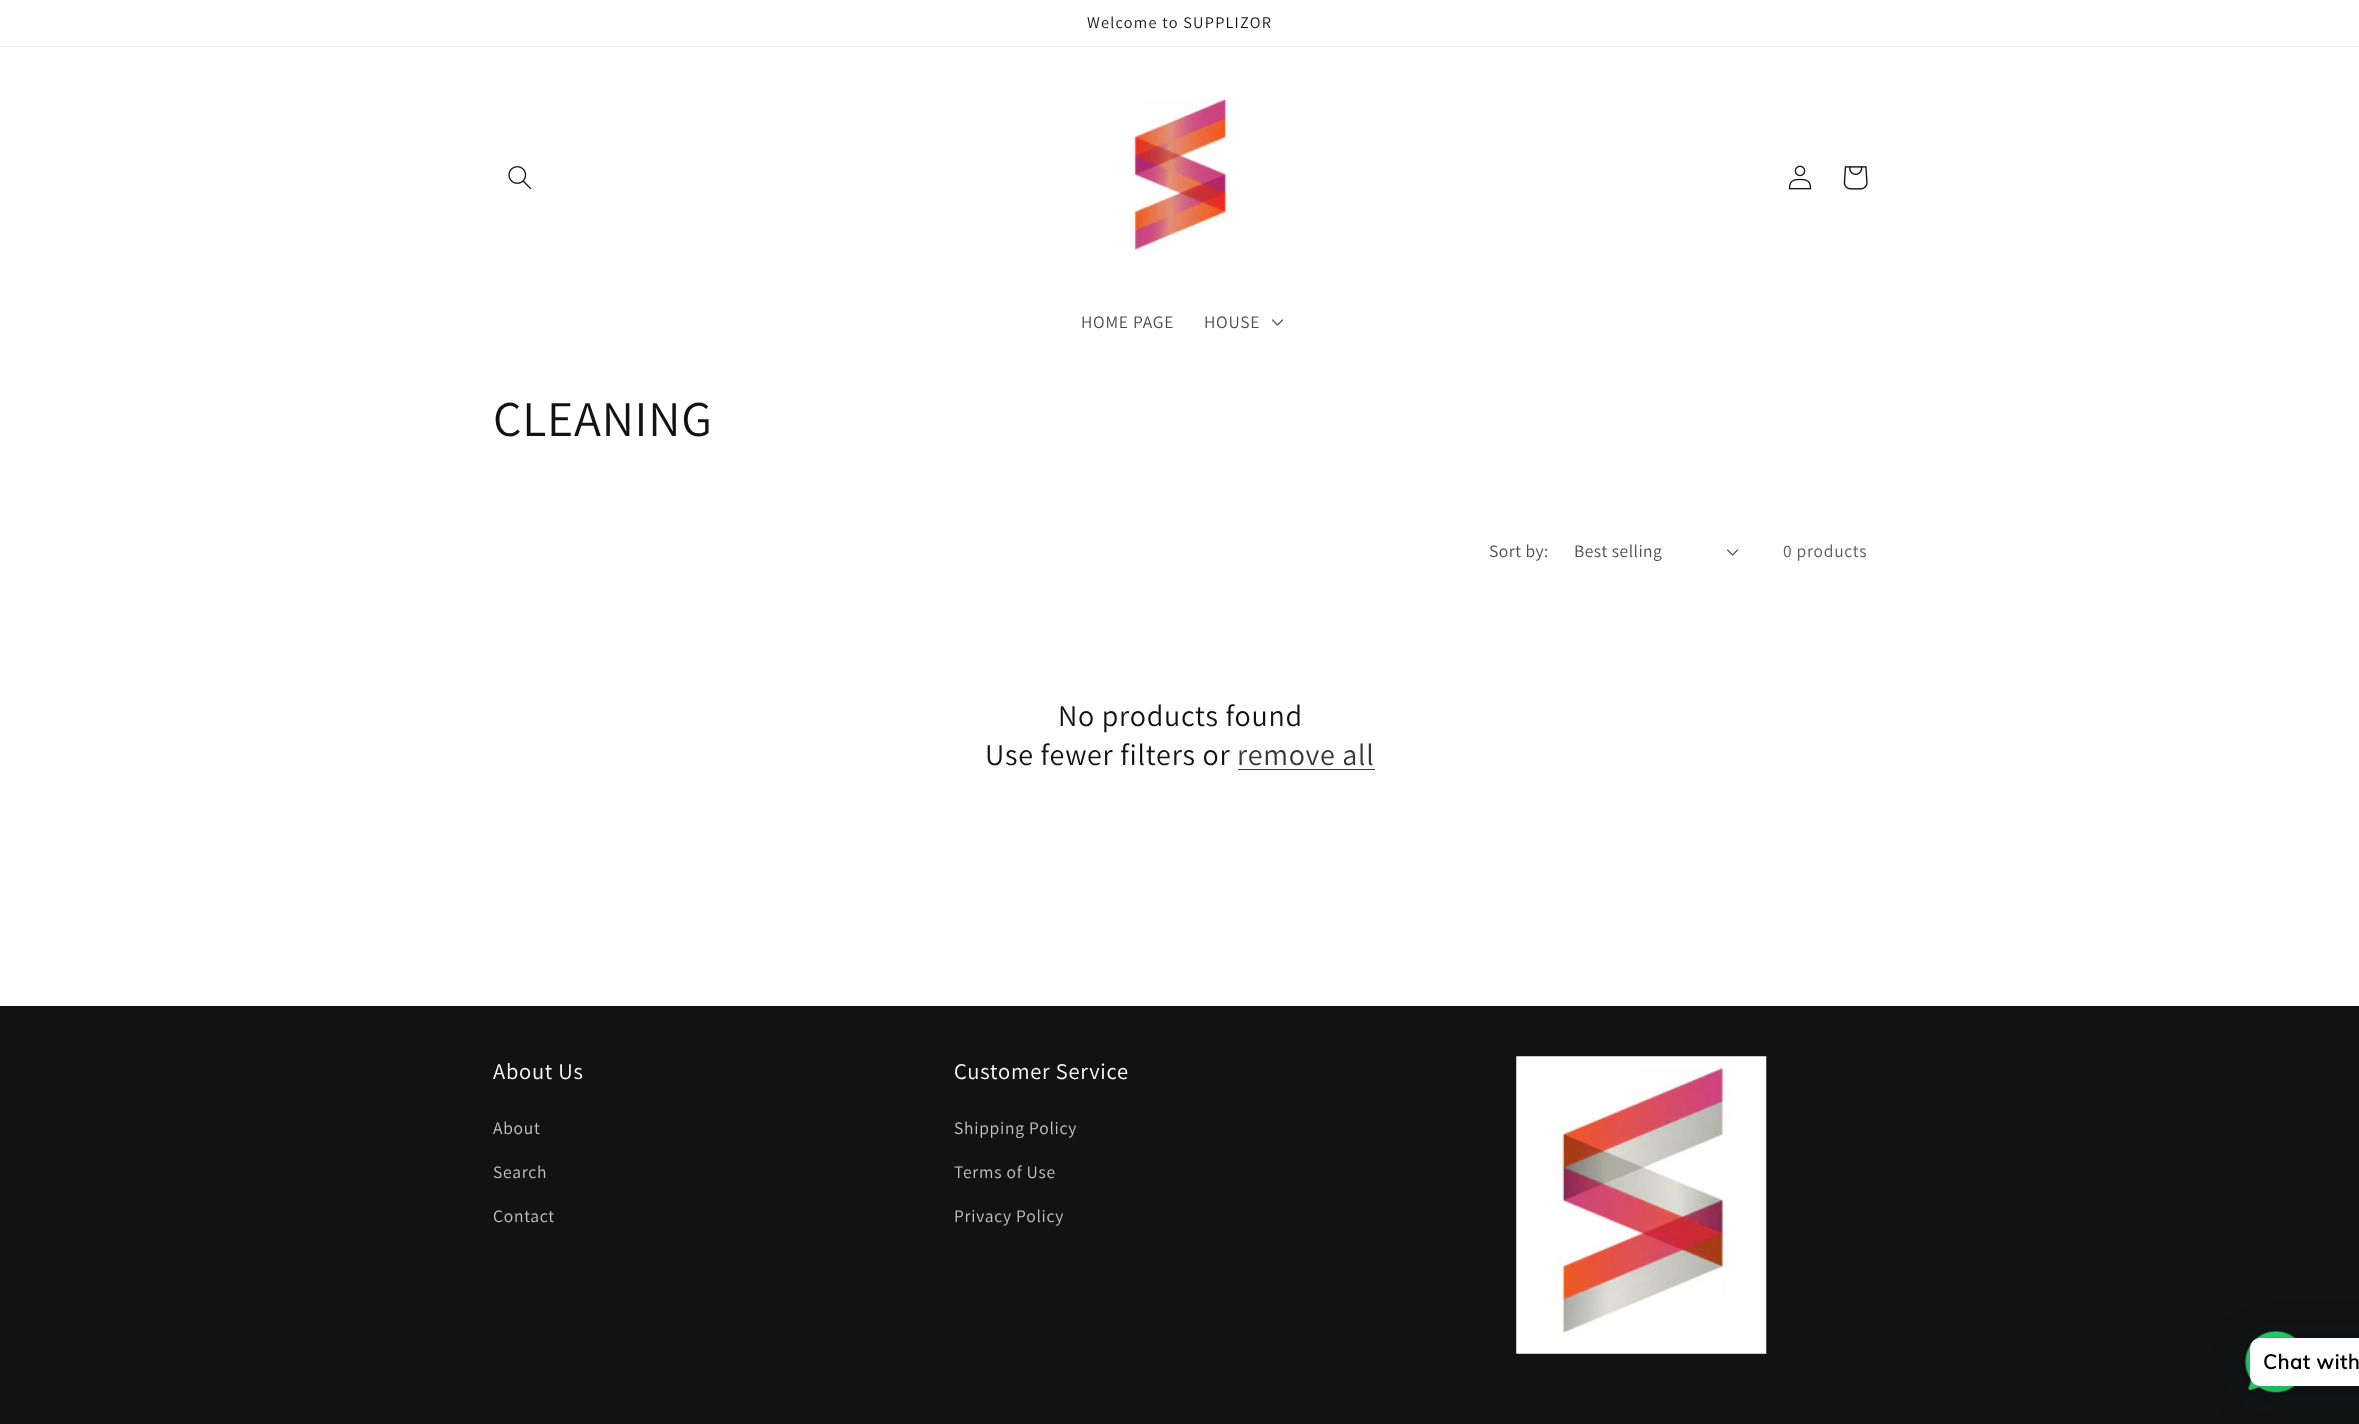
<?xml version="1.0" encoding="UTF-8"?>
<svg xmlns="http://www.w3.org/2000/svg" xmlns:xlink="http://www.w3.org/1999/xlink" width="2359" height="1424">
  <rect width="100%" height="100%" fill="#ffffff" />
  <rect y="46" width="2359" height="1" fill="#ececec" />
  <image x="508" y="166" width="24" height="24" xlink:href="image1.png" />
  <image x="1133" y="98" width="94" height="154" xlink:href="image2.png" />
  <image x="1788" y="165" width="24" height="25" xlink:href="image3.png" />
  <image x="1843" y="166" width="25" height="24" xlink:href="image4.png" />
  <image x="1272" y="319" width="11" height="7" xlink:href="image5.png" />
  <image x="1727" y="549" width="11" height="7" xlink:href="image5.png" />
  <rect x="1238" y="769" width="137" height="1" fill="#363636" />
  <rect y="1006" width="2359" height="418" fill="#121212" />
  <image x="1516" y="1056" width="251" height="298" xlink:href="image6.png" />
  <image x="2244" y="1331" width="52" height="62" xlink:href="image7.png" />
  <rect x="2250" y="1345" width="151" height="49" rx="10" fill="#00122e" fill-opacity="0.24" filter="blur(20px)" />
  <rect x="2250" y="1338" width="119" height="48" rx="10" fill="#ffffff" />
  <text x="1087" y="28" style="font-family: Assistant; font-size: 16.25px; letter-spacing: 1.25px; fill: #121212">Welcome to SUPPLIZOR</text>
  <text x="1081" y="328" style="font-family: Assistant; font-size: 17.5px; letter-spacing: 0.75px; fill: #4d4d4d">HOME PAGE</text>
  <text x="1204" y="328" style="font-family: Assistant; font-size: 17.5px; letter-spacing: 0.75px; fill: #4d4d4d">HOUSE</text>
  <text x="493" y="436" style="font-family: Assistant; font-size: 50px; letter-spacing: 0.75px; fill: #121212">CLEANING</text>
  <text x="1489" y="557" style="font-family: Assistant; font-size: 17.5px; letter-spacing: 0.5px; fill: #4d4d4d">Sort by:</text>
  <text x="1574" y="557" style="font-family: Assistant; font-size: 17.5px; letter-spacing: 0.5px; fill: #4d4d4d">Best selling</text>
  <text x="1783" y="557" style="font-family: Assistant; font-size: 17.5px; letter-spacing: 0.75px; fill: #595959">0 products</text>
  <text x="1058" y="726" style="font-family: Assistant; font-size: 30px; letter-spacing: 0.75px; fill: #121212">No products found</text>
  <text x="985" y="765" style="font-family: Assistant; font-size: 30px; letter-spacing: 0.75px; fill: #121212">Use fewer filters or</text>
  <text x="1237" y="765" style="font-family: Assistant; font-size: 30px; letter-spacing: 0.75px; fill: #363636">remove all</text>
  <text x="493" y="1079" style="font-family: Assistant; font-size: 22.5px; letter-spacing: 0.75px; fill: #ffffff">About Us</text>
  <text x="493" y="1134" style="font-family: Assistant; font-size: 17.5px; letter-spacing: 0.75px; fill: #c4c4c4">About</text>
  <text x="493" y="1178" style="font-family: Assistant; font-size: 17.5px; letter-spacing: 0.75px; fill: #c4c4c4">Search</text>
  <text x="493" y="1222" style="font-family: Assistant; font-size: 17.5px; letter-spacing: 0.75px; fill: #c4c4c4">Contact</text>
  <text x="954" y="1079" style="font-family: Assistant; font-size: 22.5px; letter-spacing: 0.75px; fill: #ffffff">Customer Service</text>
  <text x="954" y="1134" style="font-family: Assistant; font-size: 17.5px; letter-spacing: 0.75px; fill: #c4c4c4">Shipping Policy</text>
  <text x="954" y="1178" style="font-family: Assistant; font-size: 17.5px; letter-spacing: 0.75px; fill: #c4c4c4">Terms of Use</text>
  <text x="954" y="1222" style="font-family: Assistant; font-size: 17.5px; letter-spacing: 0.75px; fill: #c4c4c4">Privacy Policy</text>
  <text x="2263" y="1369" style="font-family: Muli; font-size: 20px; font-weight: bold; letter-spacing: 0.75px; fill: #000000">Chat with</text>
</svg>
